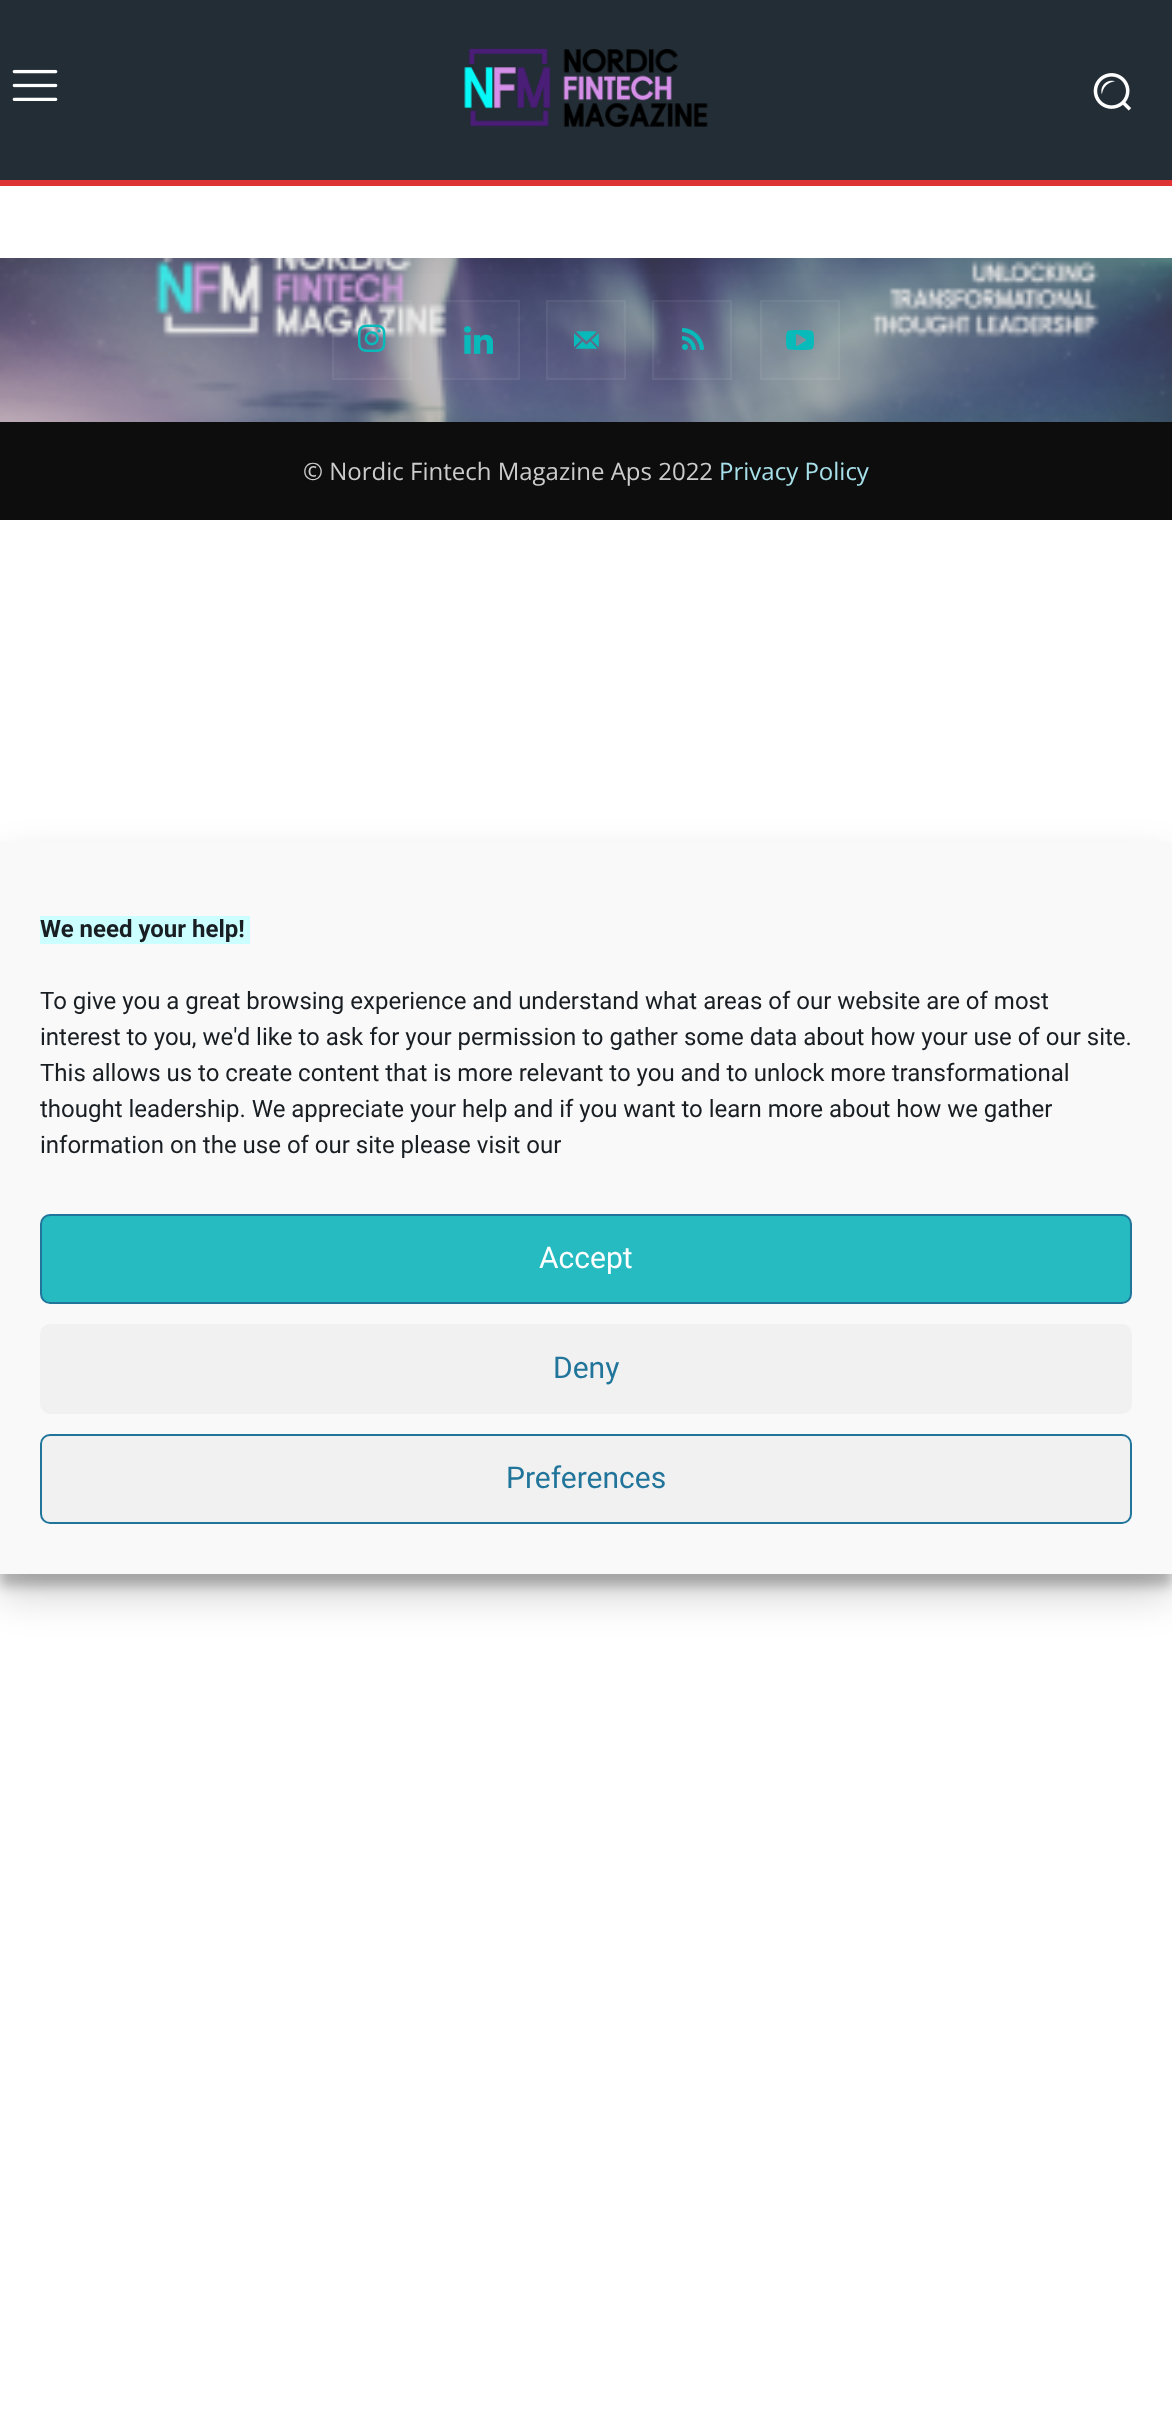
<?xml version="1.0" encoding="UTF-8"?>
<svg xmlns="http://www.w3.org/2000/svg" xmlns:xlink="http://www.w3.org/1999/xlink" width="1172" height="2413">
  <defs>
    <clipPath id="clip1"><rect x="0" y="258" width="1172" height="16" /></clipPath>
  </defs>
  <rect width="100%" height="100%" fill="#ffffff" />
  <g clip-path="url(#clip1)">
    <rect x="-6" y="200" width="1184" height="64" fill="#000000" fill-opacity="0.12" filter="blur(10px)" />
  </g>
  <rect width="1172" height="180" fill="#232d35" />
  <image x="12" y="69" width="46" height="32" xlink:href="image1.png" />
  <image x="464" y="48" width="244" height="79" xlink:href="image2.png" />
  <image x="1093" y="73" width="39" height="38" xlink:href="image3.png" />
  <rect y="180" width="1172" height="6" fill="#dd3333" />
  <rect y="186" width="1172" height="20" fill="#ffffff" />
  <rect y="258" width="1172" height="164" fill="#222222" fill-opacity="0.32" />
  <image x="0" y="258" width="1172" height="164" xlink:href="image4.png" />
  <rect x="332" y="300" width="80" height="80" fill="#ffffff" fill-opacity="0.03" />
  <image x="358" y="324" width="28" height="28" xlink:href="image5.png" />
  <rect x="333" y="301" width="78" height="78" fill="none" stroke="#ffffff" stroke-opacity="0.05" stroke-width="2" />
  <rect x="440" y="300" width="80" height="80" fill="#ffffff" fill-opacity="0.03" />
  <image x="464" y="326" width="29" height="28" xlink:href="image6.png" />
  <rect x="441" y="301" width="78" height="78" fill="none" stroke="#ffffff" stroke-opacity="0.05" stroke-width="2" />
  <rect x="546" y="300" width="80" height="80" fill="#ffffff" fill-opacity="0.03" />
  <image x="574" y="331" width="25" height="18" xlink:href="image7.png" />
  <rect x="547" y="301" width="78" height="78" fill="none" stroke="#ffffff" stroke-opacity="0.05" stroke-width="2" />
  <rect x="652" y="300" width="80" height="80" fill="#ffffff" fill-opacity="0.03" />
  <image x="682" y="328" width="22" height="22" xlink:href="image8.png" />
  <rect x="653" y="301" width="78" height="78" fill="none" stroke="#ffffff" stroke-opacity="0.05" stroke-width="2" />
  <rect x="760" y="300" width="80" height="80" fill="#ffffff" fill-opacity="0.03" />
  <image x="786" y="330" width="28" height="20" xlink:href="image9.png" />
  <rect x="761" y="301" width="78" height="78" fill="none" stroke="#ffffff" stroke-opacity="0.05" stroke-width="2" />
  <rect y="422" width="1172" height="98" fill="#0d0d0d" />
  <rect y="854" width="1172" height="732" fill="#000000" fill-opacity="0.23" filter="blur(6px)" />
  <rect y="862" width="1172" height="732" fill="#000000" fill-opacity="0.19" filter="blur(20px)" />
  <rect y="842" width="1172" height="732" fill="#f9f9f9" />
  <rect x="40" y="916" width="210" height="28" fill="#ccffff" />
  <rect x="41" y="1215" width="1090" height="88" rx="9" fill="#26bac1" stroke="#21759b" stroke-width="2" />
  <rect x="40" y="1324" width="1092" height="90" rx="10" fill="#f1f1f1" />
  <rect x="41" y="1435" width="1090" height="88" rx="9" fill="#f1f1f1" stroke="#21759b" stroke-width="2" />
  <text x="303" y="480" style="font-family: Open Sans; font-size: 24px; fill: #cccccc">© Nordic Fintech Magazine Aps 2022</text>
  <text x="719" y="480" style="font-family: Open Sans; font-size: 24px; fill: #a7e0e9">Privacy Policy</text>
  <text x="40" y="937" style="font-family: Roboto; font-size: 24px; font-weight: bold; fill: #191e23">We need your help!</text>
  <text x="40" y="1009" style="font-family: Roboto; font-size: 24px; fill: #191e23">To give you a great browsing experience and understand what areas of our website are of most</text>
  <text x="40" y="1045" style="font-family: Roboto; font-size: 24px; fill: #191e23">interest to you, we'd like to ask for your permission to gather some data about how your use of our site.</text>
  <text x="40" y="1081" style="font-family: Roboto; font-size: 24px; fill: #191e23">This allows us to create content that is more relevant to you and to unlock more transformational</text>
  <text x="40" y="1117" style="font-family: Roboto; font-size: 24px; fill: #191e23">thought leadership. We appreciate your help and if you want to learn more about how we gather</text>
  <text x="40" y="1153" style="font-family: Roboto; font-size: 24px; fill: #191e23">information on the use of our site please visit our</text>
  <text x="539" y="1268" style="font-family: Roboto; font-size: 30px; fill: #ffffff">Accept</text>
  <text x="553" y="1378" style="font-family: Roboto; font-size: 30px; fill: #21759b">Deny</text>
  <text x="506" y="1488" style="font-family: Roboto; font-size: 30px; fill: #21759b">Preferences</text>
</svg>
